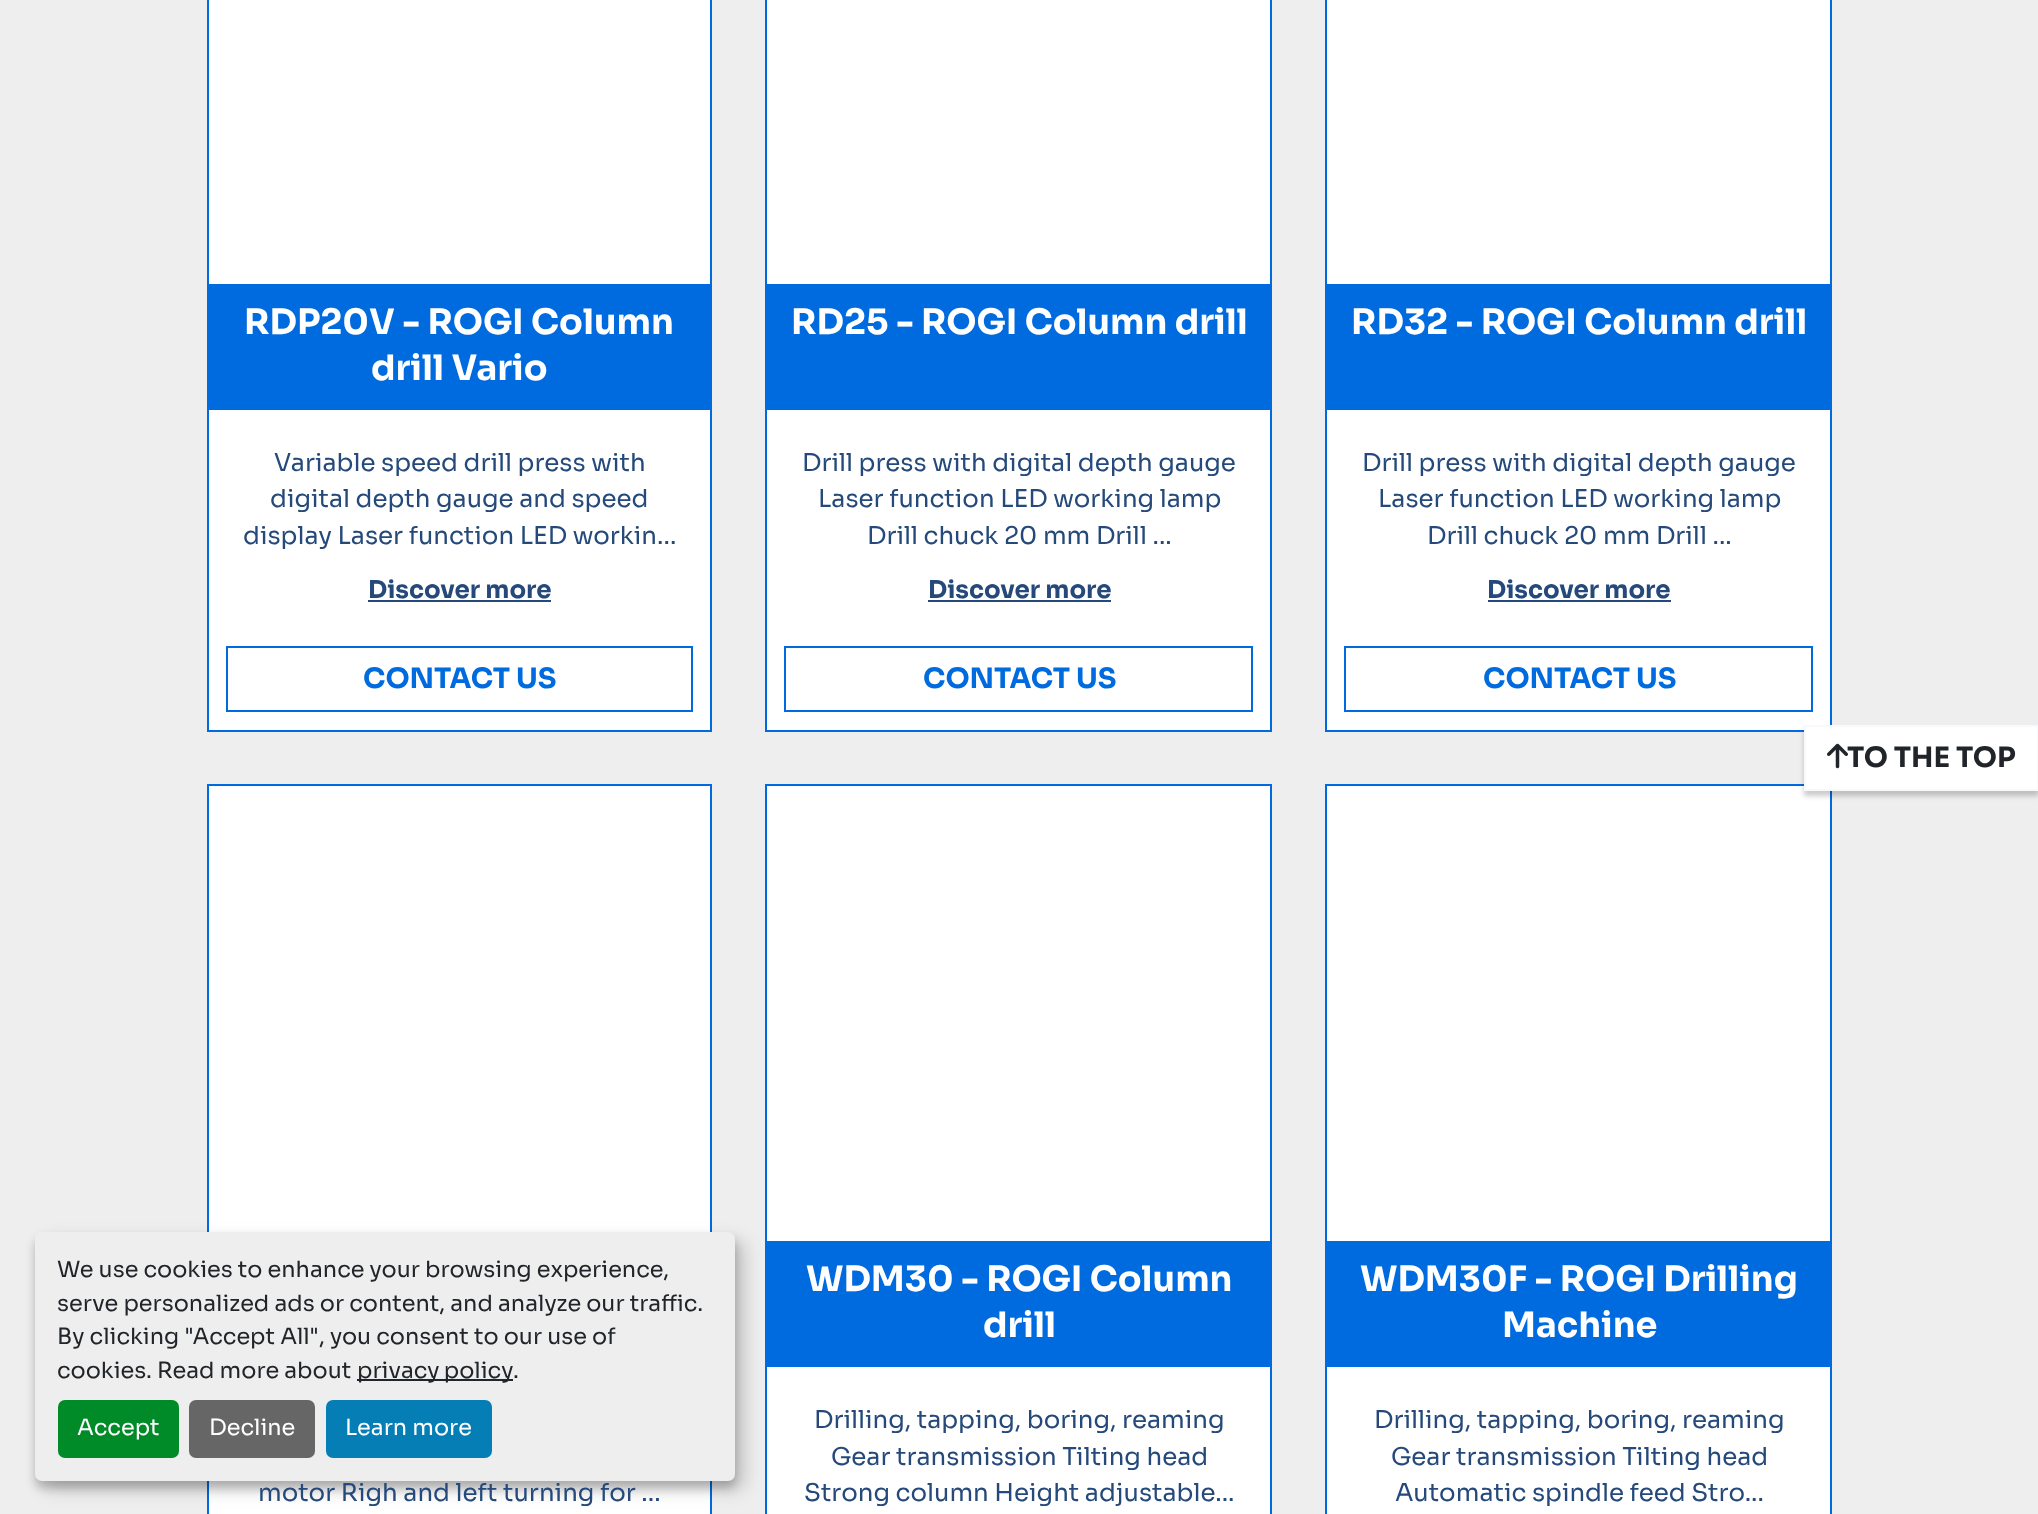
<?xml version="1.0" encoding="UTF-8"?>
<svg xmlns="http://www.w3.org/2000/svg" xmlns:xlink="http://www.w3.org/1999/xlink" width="2038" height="1514">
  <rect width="100%" height="100%" fill="#eeeeee" />
  <rect x="208" y="-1" width="503" height="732" fill="#ffffff" stroke="#006adf" stroke-width="2" />
  <rect x="209" y="284" width="501" height="126" fill="#006adf" />
  <rect x="368" y="600" width="183" height="2" fill="#24497a" />
  <rect x="227" y="647" width="465" height="64" fill="none" stroke="#006adf" stroke-width="2" />
  <rect x="766" y="-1" width="505" height="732" fill="#ffffff" stroke="#006adf" stroke-width="2" />
  <rect x="767" y="284" width="503" height="126" fill="#006adf" />
  <rect x="928" y="600" width="183" height="2" fill="#24497a" />
  <rect x="785" y="647" width="467" height="64" fill="none" stroke="#006adf" stroke-width="2" />
  <rect x="1326" y="-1" width="505" height="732" fill="#ffffff" stroke="#006adf" stroke-width="2" />
  <rect x="1327" y="284" width="503" height="126" fill="#006adf" />
  <rect x="1488" y="600" width="183" height="2" fill="#24497a" />
  <rect x="1345" y="647" width="467" height="64" fill="none" stroke="#006adf" stroke-width="2" />
  <rect x="208" y="785" width="503" height="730" fill="#ffffff" stroke="#006adf" stroke-width="2" />
  <rect x="766" y="785" width="505" height="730" fill="#ffffff" stroke="#006adf" stroke-width="2" />
  <rect x="767" y="1241" width="503" height="126" fill="#006adf" />
  <rect x="1326" y="785" width="505" height="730" fill="#ffffff" stroke="#006adf" stroke-width="2" />
  <rect x="1327" y="1241" width="503" height="126" fill="#006adf" />
  <rect x="1804" y="730" width="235" height="66" fill="#000000" fill-opacity="0.2" filter="blur(2.5px)" />
  <rect x="1805" y="726" width="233" height="64" fill="#ffffff" stroke="#f8f9fa" stroke-width="2" />
  <image x="1827" y="743" width="21" height="26" xlink:href="image1.png" />
  <rect x="44" y="1241" width="700" height="248" rx="7" fill="#000000" fill-opacity="0.19" filter="blur(9px)" />
  <rect x="35" y="1239" width="700" height="249" rx="7" fill="#000000" fill-opacity="0.2" filter="blur(5px)" />
  <rect x="35" y="1232" width="700" height="249" rx="7" fill="#eeeeee" />
  <rect x="357" y="1379" width="156" height="2" fill="#212529" />
  <rect x="58" y="1400" width="121" height="58" rx="7" fill="#008a28" />
  <rect x="189" y="1400" width="126" height="58" rx="7" fill="#666666" />
  <rect x="326" y="1400" width="166" height="58" rx="7" fill="#057eb6" />
  <text x="244" y="334" style="font-family: Sora; font-size: 35px; font-weight: bold; fill: #ffffff">RDP20V - ROGI Column</text>
  <text x="371" y="380" style="font-family: Sora; font-size: 35px; font-weight: bold; fill: #ffffff">drill Vario</text>
  <text x="274" y="471" style="font-family: Sora; font-size: 24.5px; fill: #24497a">Variable speed drill press with</text>
  <text x="270" y="507" style="font-family: Sora; font-size: 24.5px; fill: #24497a">digital depth gauge and speed</text>
  <text x="243" y="544" style="font-family: Sora; font-size: 24.5px; fill: #24497a">display Laser function LED workin...</text>
  <text x="368" y="598" style="font-family: Sora; font-size: 24.5px; font-weight: bold; fill: #24497a">Discover more</text>
  <text x="363" y="688" style="font-family: Sora; font-size: 28px; font-weight: bold; fill: #006adf">CONTACT US</text>
  <text x="791" y="334" style="font-family: Sora; font-size: 35px; font-weight: bold; fill: #ffffff">RD25 - ROGI Column drill</text>
  <text x="802" y="471" style="font-family: Sora; font-size: 24.5px; fill: #24497a">Drill press with digital depth gauge</text>
  <text x="818" y="507" style="font-family: Sora; font-size: 24.5px; fill: #24497a">Laser function LED working lamp</text>
  <text x="867" y="544" style="font-family: Sora; font-size: 24.5px; fill: #24497a">Drill chuck 20 mm Drill ...</text>
  <text x="928" y="598" style="font-family: Sora; font-size: 24.5px; font-weight: bold; fill: #24497a">Discover more</text>
  <text x="923" y="688" style="font-family: Sora; font-size: 28px; font-weight: bold; fill: #006adf">CONTACT US</text>
  <text x="1351" y="334" style="font-family: Sora; font-size: 35px; font-weight: bold; fill: #ffffff">RD32 - ROGI Column drill</text>
  <text x="1362" y="471" style="font-family: Sora; font-size: 24.5px; fill: #24497a">Drill press with digital depth gauge</text>
  <text x="1378" y="507" style="font-family: Sora; font-size: 24.5px; fill: #24497a">Laser function LED working lamp</text>
  <text x="1427" y="544" style="font-family: Sora; font-size: 24.5px; fill: #24497a">Drill chuck 20 mm Drill ...</text>
  <text x="1487" y="598" style="font-family: Sora; font-size: 24.5px; font-weight: bold; fill: #24497a">Discover more</text>
  <text x="1483" y="688" style="font-family: Sora; font-size: 28px; font-weight: bold; fill: #006adf">CONTACT US</text>
  <text x="258" y="1501" style="font-family: Sora; font-size: 24.5px; fill: #24497a">motor Righ and left turning for ...</text>
  <text x="806" y="1291" style="font-family: Sora; font-size: 35px; font-weight: bold; fill: #ffffff">WDM30 - ROGI Column</text>
  <text x="983" y="1337" style="font-family: Sora; font-size: 35px; font-weight: bold; fill: #ffffff">drill</text>
  <text x="814" y="1428" style="font-family: Sora; font-size: 24.5px; fill: #24497a">Drilling, tapping, boring, reaming</text>
  <text x="831" y="1465" style="font-family: Sora; font-size: 24.5px; fill: #24497a">Gear transmission Tilting head</text>
  <text x="804" y="1501" style="font-family: Sora; font-size: 24.5px; fill: #24497a">Strong column Height adjustable...</text>
  <text x="1360" y="1291" style="font-family: Sora; font-size: 35px; font-weight: bold; fill: #ffffff">WDM30F - ROGI Drilling</text>
  <text x="1502" y="1337" style="font-family: Sora; font-size: 35px; font-weight: bold; fill: #ffffff">Machine</text>
  <text x="1374" y="1428" style="font-family: Sora; font-size: 24.5px; fill: #24497a">Drilling, tapping, boring, reaming</text>
  <text x="1391" y="1465" style="font-family: Sora; font-size: 24.5px; fill: #24497a">Gear transmission Tilting head</text>
  <text x="1395" y="1501" style="font-family: Sora; font-size: 24.5px; fill: #24497a">Automatic spindle feed Stro...</text>
  <text x="1847" y="767" style="font-family: Sora; font-size: 28px; font-weight: bold; fill: #212529">TO THE TOP</text>
  <text x="57" y="1277" style="font-family: Sora; font-size: 22.4px; fill: #212529">We use cookies to enhance your browsing experience,</text>
  <text x="57" y="1311" style="font-family: Sora; font-size: 22.4px; fill: #212529">serve personalized ads or content, and analyze our traffic.</text>
  <text x="57" y="1344" style="font-family: Sora; font-size: 22.4px; fill: #212529">By clicking "Accept All", you consent to our use of</text>
  <text x="57" y="1378" style="font-family: Sora; font-size: 22.4px; fill: #212529">cookies. Read more about</text>
  <text x="357" y="1378" word-spacing="-1" style="font-family: Sora; font-size: 22.4px; fill: #212529">privacy policy</text>
  <text x="513" y="1378" style="font-family: Sora; font-size: 22.4px; fill: #212529">.</text>
  <text x="77" y="1435" style="font-family: Sora; font-size: 22.4px; fill: #ffffff">Accept</text>
  <text x="209" y="1435" style="font-family: Sora; font-size: 22.4px; fill: #ffffff">Decline</text>
  <text x="345" y="1435" style="font-family: Sora; font-size: 22.4px; fill: #ffffff">Learn more</text>
</svg>
